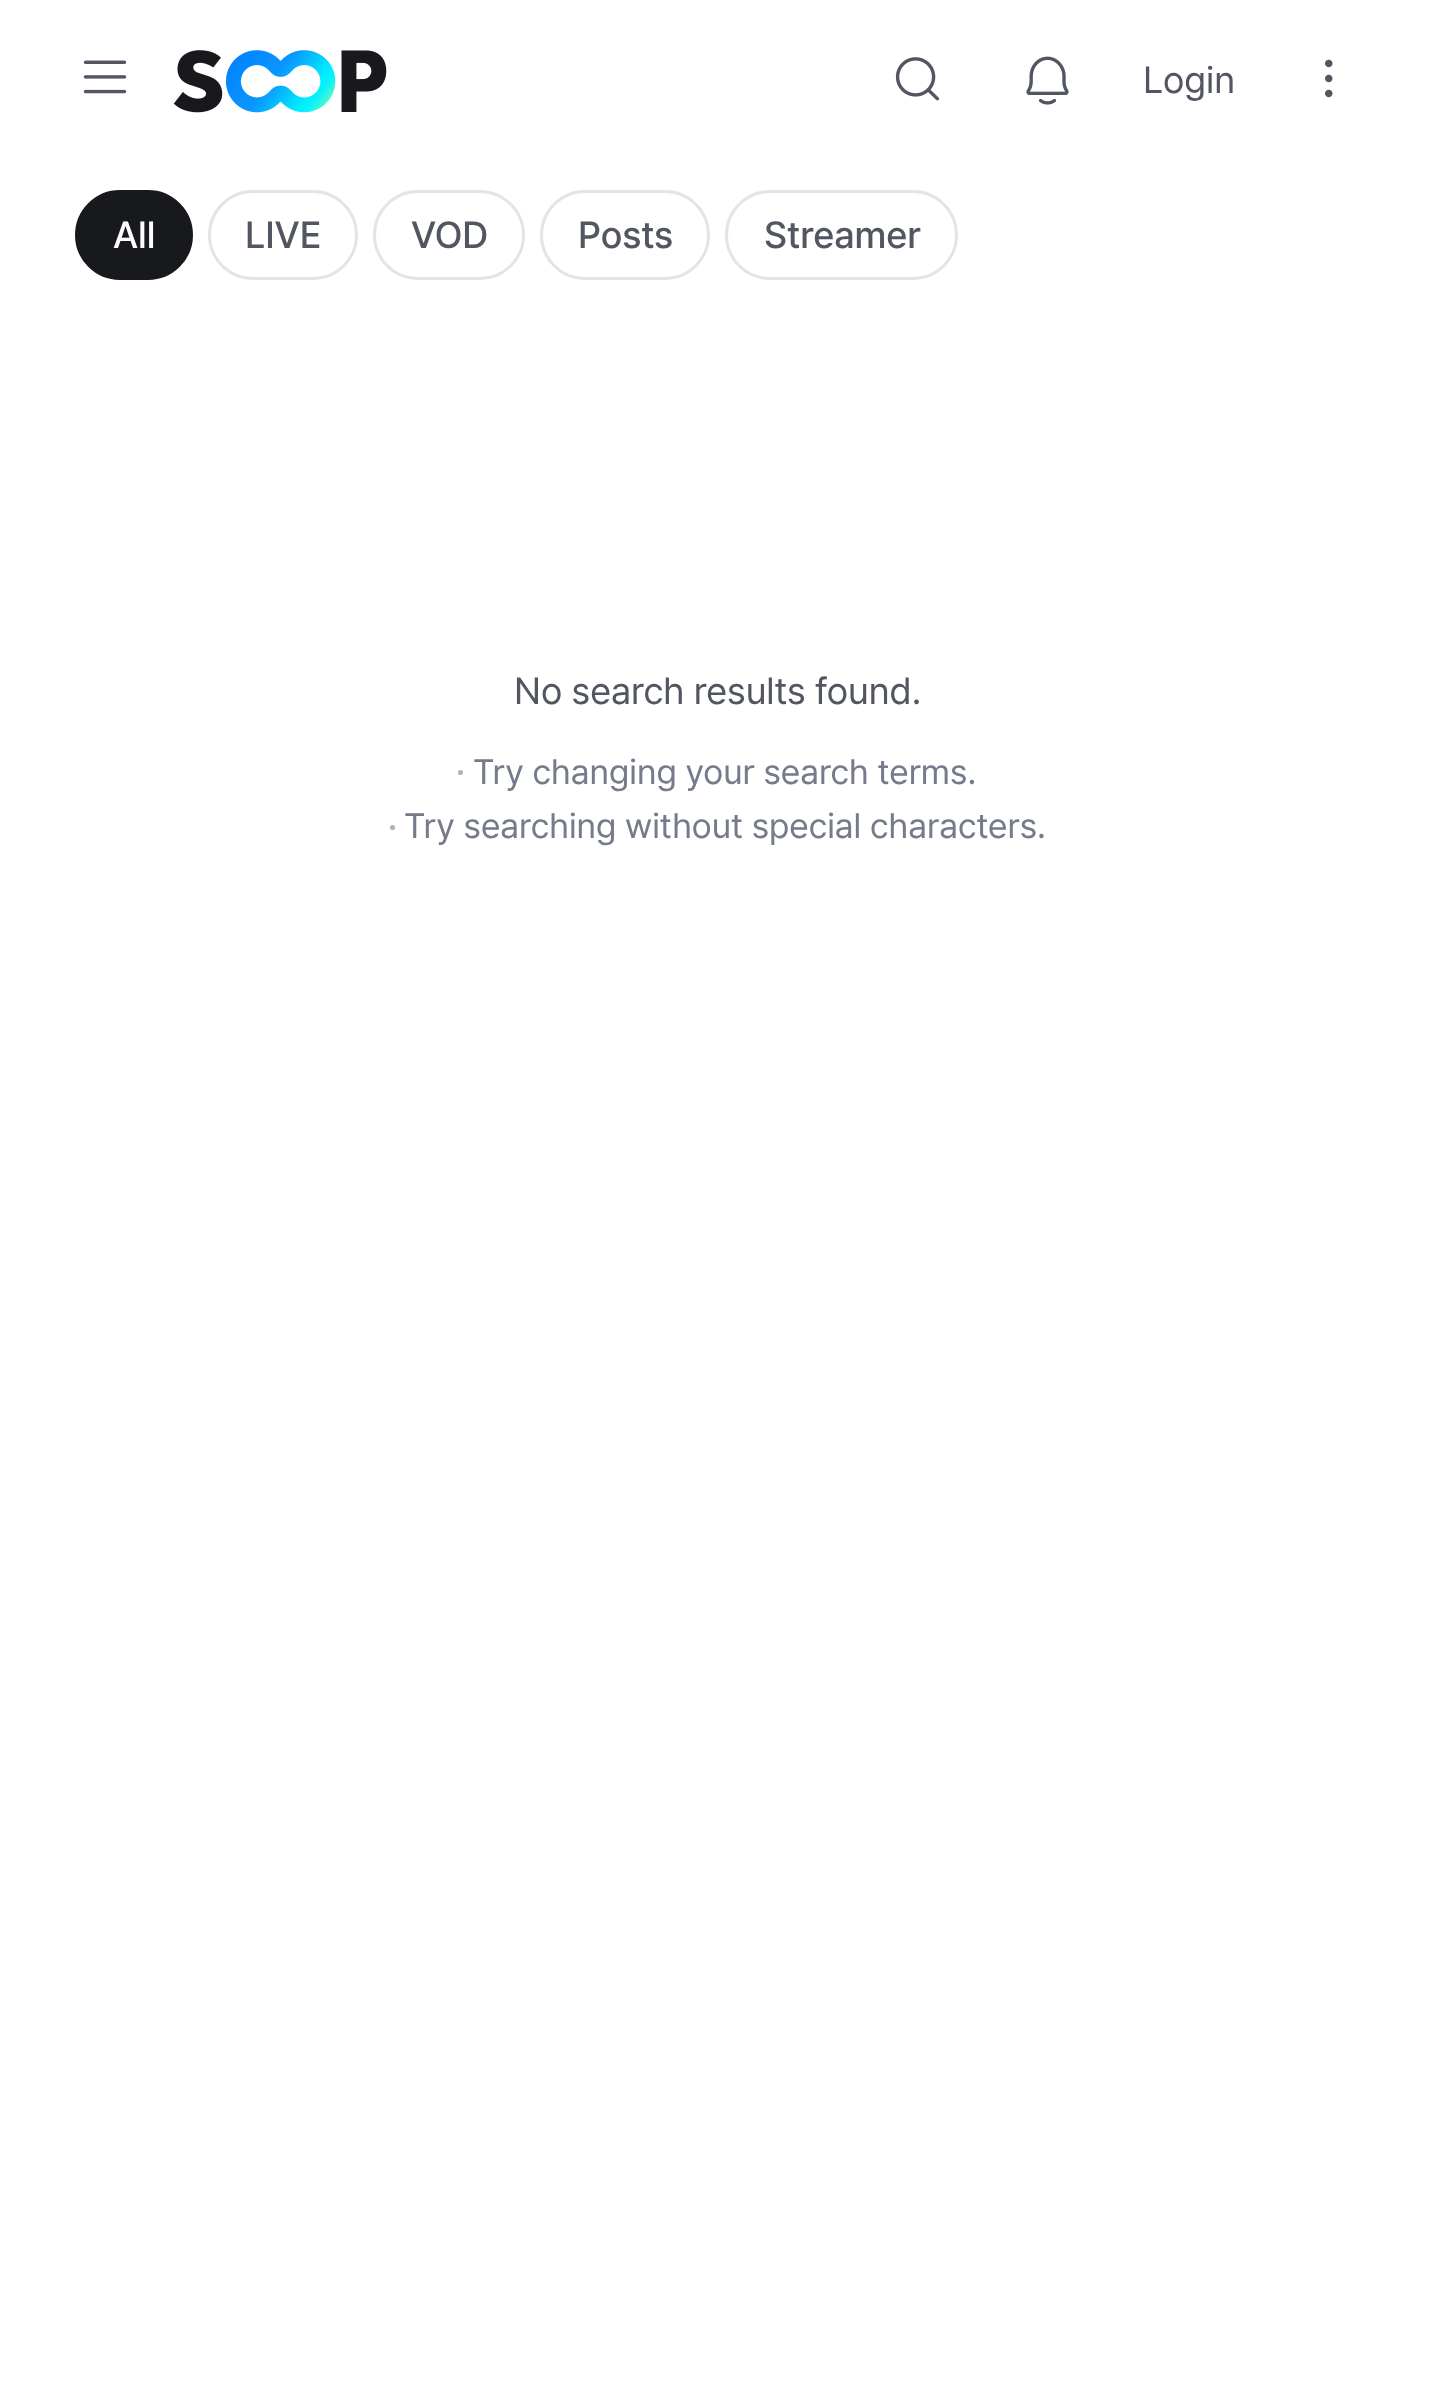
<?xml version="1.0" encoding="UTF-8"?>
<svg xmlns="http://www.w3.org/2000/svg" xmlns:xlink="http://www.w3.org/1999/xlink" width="1434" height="2398">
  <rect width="100%" height="100%" fill="#ffffff" />
  <image x="83" y="60" width="44" height="34" xlink:href="image1.png" />
  <image x="173" y="50" width="214" height="63" xlink:href="image2.png" />
  <image x="895" y="57" width="45" height="44" xlink:href="image3.png" />
  <image x="1026" y="56" width="43" height="49" xlink:href="image4.png" />
  <image x="1325" y="59" width="8" height="39" xlink:href="image5.png" />
  <rect x="76.5" y="191.5" width="115" height="87" rx="43.5" fill="#17191c" stroke="#17191c" stroke-width="3" />
  <rect x="209.5" y="191.5" width="147" height="87" rx="43.5" fill="none" stroke="#e2e4e9" stroke-width="3" />
  <rect x="374.5" y="191.5" width="149" height="87" rx="43.5" fill="none" stroke="#e2e4e9" stroke-width="3" />
  <rect x="541.5" y="191.5" width="167" height="87" rx="43.5" fill="none" stroke="#e2e4e9" stroke-width="3" />
  <rect x="726.5" y="191.5" width="230" height="87" rx="43.5" fill="none" stroke="#e2e4e9" stroke-width="3" />
  <circle cx="460.5" cy="772.5" r="2.5" fill="#acb0b9" />
  <circle cx="392.5" cy="827.5" r="2.5" fill="#acb0b9" />
  <text x="1143" y="93" style="font-family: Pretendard; font-size: 37.5px; fill: #525661">Login</text>
  <text x="113" y="248" style="font-family: Pretendard; font-size: 37.5px; font-weight: 500; fill: #fcfcfd">All</text>
  <text x="245" y="248" style="font-family: Pretendard; font-size: 37.5px; font-weight: 500; fill: #525661">LIVE</text>
  <text x="411" y="248" style="font-family: Pretendard; font-size: 37.5px; font-weight: 500; fill: #525661">VOD</text>
  <text x="578" y="248" style="font-family: Pretendard; font-size: 37.5px; font-weight: 500; fill: #525661">Posts</text>
  <text x="764" y="248" style="font-family: Pretendard; font-size: 37.5px; font-weight: 500; fill: #525661">Streamer</text>
  <text x="514" y="704" style="font-family: Pretendard; font-size: 37.5px; fill: #525661">No search results found.</text>
  <text x="473" y="784" style="font-family: Pretendard; font-size: 35px; fill: #757b8a">Try changing your search terms.</text>
  <text x="404" y="838" style="font-family: Pretendard; font-size: 35px; fill: #757b8a">Try searching without special characters.</text>
</svg>
